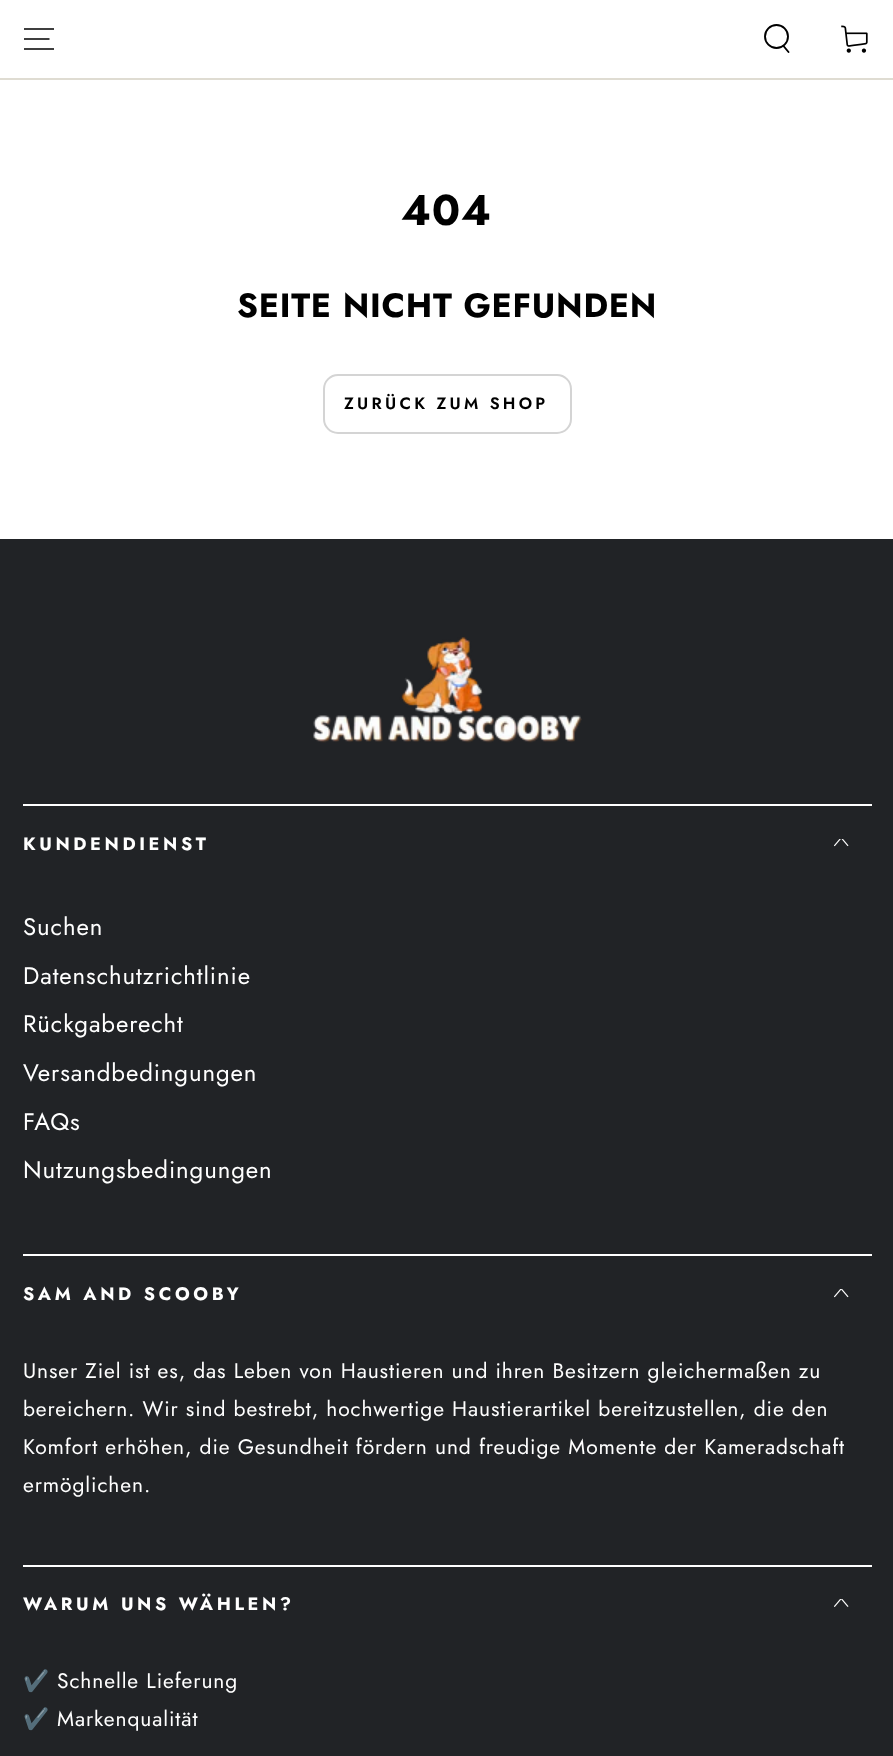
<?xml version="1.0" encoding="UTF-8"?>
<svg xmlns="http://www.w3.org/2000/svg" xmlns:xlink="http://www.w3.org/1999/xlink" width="893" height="1756">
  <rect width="100%" height="100%" fill="#ffffff" />
  <rect y="78" width="893" height="2" fill="#dfdcd2" />
  <path d="M 24 49 h 30 m -30 -10 h 25.5 m -25.5 -10 h 30" fill="none" stroke="#000000" stroke-width="1.7" />
  <circle cx="776.5" cy="36.5" r="11.5" fill="none" stroke="#000000" stroke-width="1.9" />
  <path d="M 783.5 46 l 5 6" fill="none" stroke="#000000" stroke-width="1.9" stroke-linecap="round" />
  <image x="841" y="25" width="27" height="28" xlink:href="image1.png" />
  <rect x="324" y="375" width="247" height="58" rx="14" fill="none" stroke="#d4d4d4" stroke-width="2" />
  <rect y="539" width="893" height="1217" fill="#212326" />
  <rect x="23" y="804" width="849" height="2" fill="#ffffff" />
  <image x="313" y="637" width="269" height="106" xlink:href="image2.png" />
  <rect x="23" y="1254" width="849" height="2" fill="#ffffff" />
  <image x="834" y="839" width="15" height="8" xlink:href="image3.png" />
  <rect x="23" y="1565" width="849" height="2" fill="#ffffff" />
  <image x="834" y="1289" width="15" height="9" xlink:href="image4.png" />
  <image x="834" y="1599" width="15" height="8" xlink:href="image5.png" />
  <text x="401" y="225" style="font-family: Jost; font-size: 43px; font-weight: bold; letter-spacing: 0.75px; fill: #000000">404</text>
  <text x="237" y="317" style="font-family: Jost; font-size: 33.6px; font-weight: bold; letter-spacing: 0.75px; fill: #000000">SEITE NICHT GEFUNDEN</text>
  <text x="344" y="409" style="font-family: Jost; font-size: 16.5px; font-weight: 600; letter-spacing: 3.25px; fill: #000000">ZURÜCK ZUM SHOP</text>
  <text x="23" y="850" style="font-family: Jost; font-size: 18px; font-weight: bold; letter-spacing: 3.6px; fill: #ffffff">KUNDENDIENST</text>
  <text x="23" y="935" style="font-family: Jost; font-size: 24px; letter-spacing: 0.9px; fill: #ffffff">Suchen</text>
  <text x="23" y="984" style="font-family: Jost; font-size: 24px; letter-spacing: 0.9px; fill: #ffffff">Datenschutzrichtlinie</text>
  <text x="23" y="1032" style="font-family: Jost; font-size: 24px; letter-spacing: 0.9px; fill: #ffffff">Rückgaberecht</text>
  <text x="23" y="1081" style="font-family: Jost; font-size: 24px; letter-spacing: 0.9px; fill: #ffffff">Versandbedingungen</text>
  <text x="23" y="1130" style="font-family: Jost; font-size: 24px; letter-spacing: 0.9px; fill: #ffffff">FAQs</text>
  <text x="23" y="1178" style="font-family: Jost; font-size: 24px; letter-spacing: 0.9px; fill: #ffffff">Nutzungsbedingungen</text>
  <text x="23" y="1300" style="font-family: Jost; font-size: 18px; font-weight: bold; letter-spacing: 3.6px; fill: #ffffff">SAM AND SCOOBY</text>
  <text x="23" y="1378" style="font-family: Jost; font-size: 21px; letter-spacing: 0.9px; fill: #ffffff">Unser Ziel ist es, das Leben von Haustieren und ihren Besitzern gleichermaßen zu</text>
  <text x="23" y="1416" style="font-family: Jost; font-size: 21px; letter-spacing: 0.9px; fill: #ffffff">bereichern. Wir sind bestrebt, hochwertige Haustierartikel bereitzustellen, die den</text>
  <text x="23" y="1454" style="font-family: Jost; font-size: 21px; letter-spacing: 0.9px; fill: #ffffff">Komfort erhöhen, die Gesundheit fördern und freudige Momente der Kameradschaft</text>
  <text x="23" y="1492" style="font-family: Jost; font-size: 21px; letter-spacing: 0.9px; fill: #ffffff">ermöglichen.</text>
  <text x="23" y="1610" style="font-family: Jost; font-size: 18px; font-weight: bold; letter-spacing: 3.6px; fill: #ffffff">WARUM UNS WÄHLEN?</text>
  <text x="23" y="1688" style="font-family: Noto Color Emoji; font-size: 21px; letter-spacing: 0.9px; fill: #ffffff">✔️</text>
  <text x="57" y="1688" style="font-family: Jost; font-size: 21px; letter-spacing: 0.9px; fill: #ffffff">Schnelle Lieferung</text>
  <text x="23" y="1726" style="font-family: Noto Color Emoji; font-size: 21px; letter-spacing: 0.9px; fill: #ffffff">✔️</text>
  <text x="57" y="1726" style="font-family: Jost; font-size: 21px; letter-spacing: 0.9px; fill: #ffffff">Markenqualität</text>
</svg>
